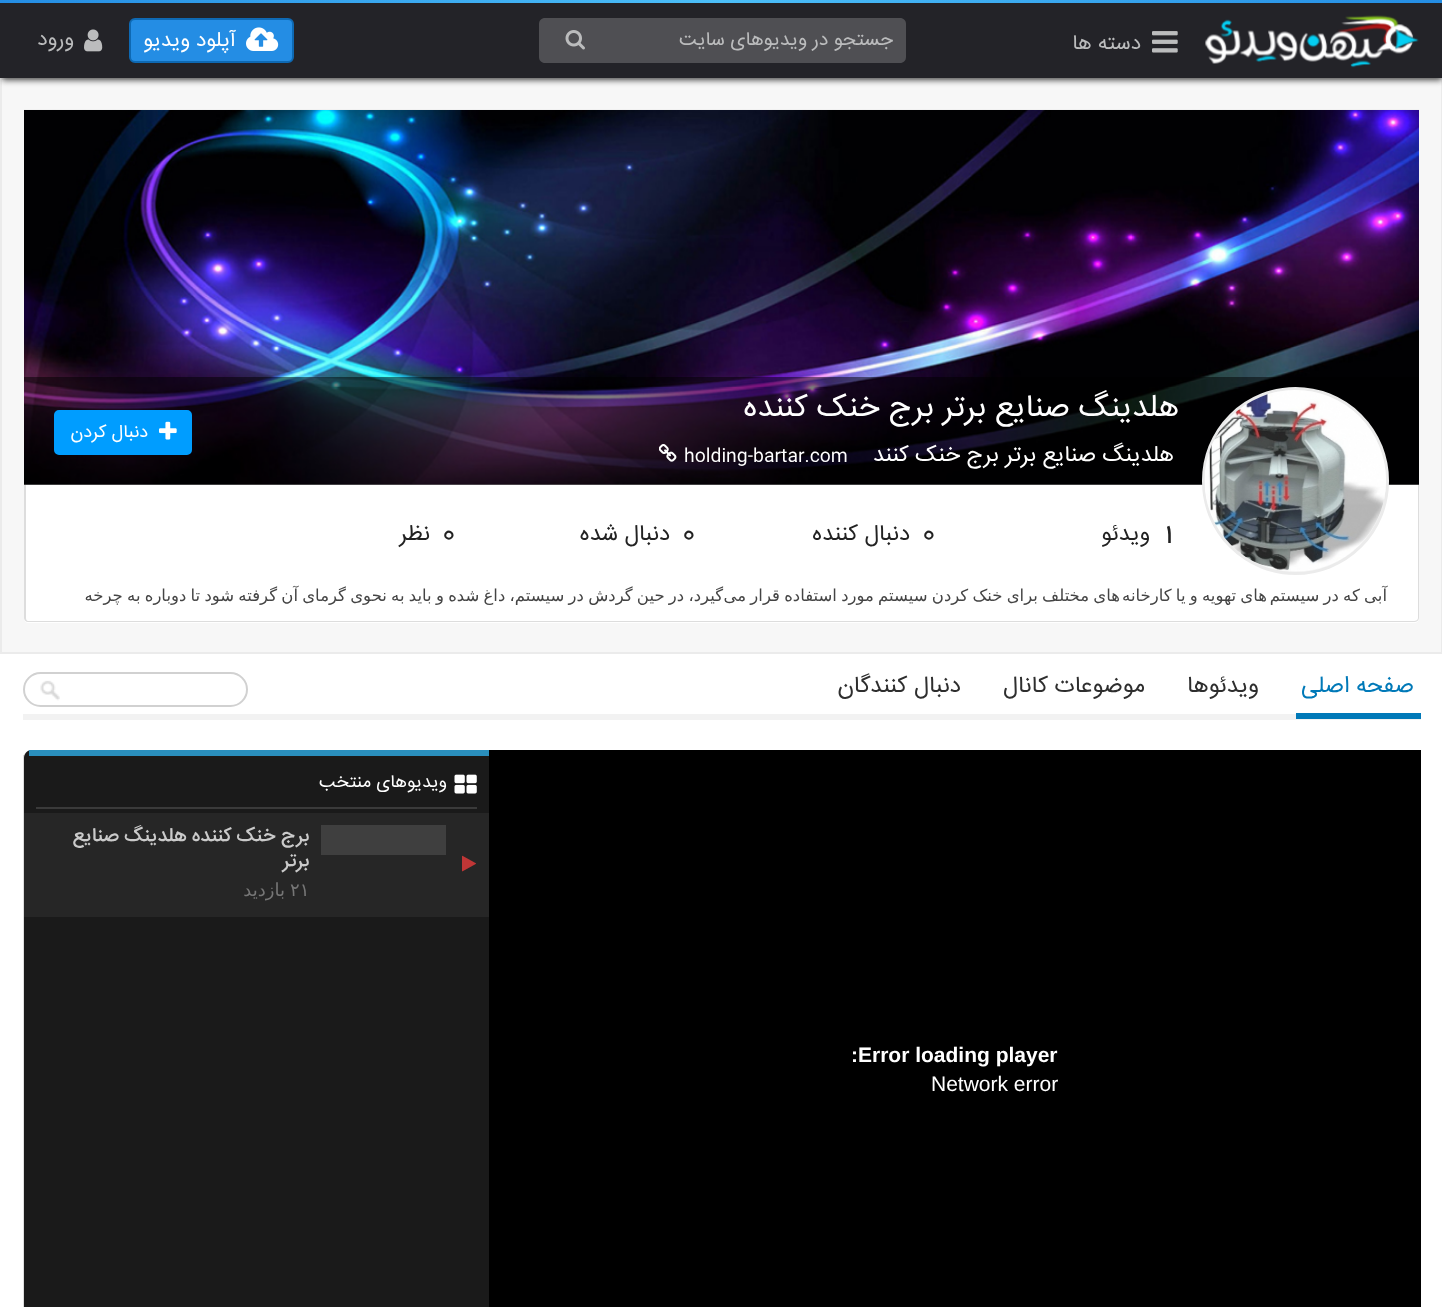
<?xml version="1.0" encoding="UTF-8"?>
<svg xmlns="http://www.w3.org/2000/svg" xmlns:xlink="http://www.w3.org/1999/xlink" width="1442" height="1307">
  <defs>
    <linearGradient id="g1" gradientUnits="userSpaceOnUse" x1="0" y1="1.5" x2="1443" y2="1.5"><stop offset="0" stop-color="#248de4" /><stop offset="0.5" stop-color="#4cbff9" /><stop offset="1" stop-color="#248de4" /></linearGradient>
    <clipPath id="clip1"><rect x="41" y="581" width="1347" height="30" /></clipPath>
  </defs>
  <rect width="100%" height="100%" fill="#ffffff" />
  <rect x="1" y="79" width="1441" height="574" fill="#f7f7f7" stroke="#ebebeb" stroke-width="2" />
  <rect x="2" y="5" width="1440" height="75" fill="#474747" filter="blur(3px)" />
  <rect y="3" width="1442" height="75" fill="#232328" />
  <rect width="1442" height="3" fill="url(#g1)" />
  <image x="1205" y="15" width="214" height="53" xlink:href="image1.png" />
  <image x="1152" y="31" width="26" height="22" xlink:href="image2.png" />
  <path d="M 612 18 h 288 c 3.5 0 6 2.5 6 6 v 33 c 0 3.5 -2.5 6 -6 6 h -288 z" fill="#4f4f53" />
  <path d="M 545 18 h 67 v 45 h -67 c -3.5 0 -6 -2.5 -6 -6 v -33 c 0 -3.5 2.5 -6 6 -6 z" fill="#4f4f53" />
  <image x="565" y="30" width="20" height="20" xlink:href="image3.png" />
  <rect x="130" y="19" width="163" height="43" rx="5" fill="#248de4" stroke="#0e69b3" stroke-width="2" />
  <image x="246" y="27" width="33" height="24" xlink:href="image4.png" />
  <image x="84" y="29" width="19" height="23" xlink:href="image5.png" />
  <path d="M 24 485 h 1395 v 133 c 0 3 -2 5 -5 5 h -1385 c -3 0 -5 -2 -5 -5 z" fill="#ffffff" />
  <path d="M 24 484 h 1395 v 134 c 0 2 -2 4 -5 4 h -1386 c -2 0 -4 -2 -4 -4 z m 2 0 h 1392 v 134 c 0 2 -2 3 -4 3 h -1386 c -1 0 -2 -1 -2 -3 z" fill="#dddddd" fill-rule="evenodd" />
  <image x="24" y="109" width="1395" height="376" xlink:href="image7.png" />
  <image x="24" y="110" width="1395" height="375" xlink:href="image8.png" />
  <rect x="24" y="377" width="1395" height="108" fill="#000000" fill-opacity="0.5" />
  <rect x="1203.5" y="388.5" width="184" height="185" rx="92" fill="#f7f7f7" stroke="#ebebeb" stroke-width="3" />
  <image x="1204" y="390" width="182" height="181" xlink:href="image6.png" />
  <image x="659" y="444" width="18" height="18" xlink:href="image9.png" />
  <rect x="55" y="411" width="136" height="43" rx="4" fill="#009dff" stroke="#009dff" stroke-width="2" />
  <image x="159" y="421" width="18" height="19" xlink:href="image10.png" />
  <rect x="23" y="714" width="1398" height="6" fill="#f2f2f2" />
  <rect x="1296" y="713" width="125" height="6" fill="#0079b8" />
  <image x="40" y="680" width="20" height="21" xlink:href="image11.png" />
  <rect x="24" y="673" width="223" height="33" rx="16.5" fill="none" stroke="#d1d1d1" stroke-width="2" />
  <path d="M 31 750 h 458 v 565 h -458 c -4.5 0 -8 -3.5 -8 -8 v -549 c 0 -4.5 3.5 -8 8 -8 z" fill="#f7f7f7" />
  <rect x="23" y="755" width="2" height="552" fill="#dddddd" />
  <path d="M 32 750 h 457 v 102 h -465 v -94 c 0 -4.5 3.5 -8 8 -8 z" fill="#1a1a1a" />
  <rect x="29" y="750" width="460" height="6" fill="#2a8fbd" />
  <image x="454" y="774" width="23" height="20" xlink:href="image12.png" />
  <rect x="36" y="807" width="441" height="2" fill="#3a3a3a" />
  <rect x="24" y="917" width="465" height="390" fill="#1a1a1a" />
  <rect x="24" y="813" width="465" height="104" fill="#262626" />
  <image x="462" y="855" width="14" height="17" xlink:href="image13.png" />
  <rect x="321" y="825" width="125" height="30" fill="#3f3f3f" />
  <rect x="489" y="750" width="932" height="557" fill="#000000" />
  <text x="1141" y="49" style="font-family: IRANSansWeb; font-size: 21px; direction: rtl; fill: #bbbcbd">دسته ها</text>
  <text x="893" y="45" style="font-family: IRANSansWeb; font-size: 19.5px; direction: rtl; fill: #bbbcbd">جستجو در ویدیوهای سایت</text>
  <text x="236" y="46" style="font-family: IRANSansWeb; font-size: 21px; direction: rtl; fill: #ffffff">آپلود ویدیو</text>
  <text x="74" y="45" style="font-family: IRANSansWeb; font-size: 21px; direction: rtl; fill: #bbbcbd">ورود</text>
  <text x="1179" y="416" style="font-family: IRANSansWeb; font-size: 31.5px; direction: rtl; fill: #ffffff">هلدینگ صنایع برتر برج خنک کننده</text>
  <text x="1174" y="461" style="font-family: IRANSansWeb; font-size: 22.5px; direction: rtl; fill: #ffffff">هلدینگ صنایع برتر برج خنک کنند</text>
  <text x="684" y="461" style="font-family: IRANSansWeb; font-size: 18px; fill: #ffffff">holding-bartar.com</text>
  <text x="148" y="437" style="font-family: IRANSansWeb; font-size: 18px; direction: rtl; fill: #ffffff">دنبال کردن</text>
  <text x="1160" y="540" style="font-family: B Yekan; font-size: 30px; fill: #222222">1</text>
  <text x="1150" y="540" style="font-family: IRANSansWeb; font-size: 22.5px; direction: rtl; fill: #222222">ویدئو</text>
  <text x="920" y="540" style="font-family: B Yekan; font-size: 30px; fill: #222222">0</text>
  <text x="910" y="540" style="font-family: IRANSansWeb; font-size: 22.5px; direction: rtl; fill: #222222">دنبال کننده</text>
  <text x="680" y="540" style="font-family: B Yekan; font-size: 30px; fill: #222222">0</text>
  <text x="670" y="540" style="font-family: IRANSansWeb; font-size: 22.5px; direction: rtl; fill: #222222">دنبال شده</text>
  <text x="440" y="540" style="font-family: B Yekan; font-size: 30px; fill: #222222">0</text>
  <text x="430" y="540" style="font-family: IRANSansWeb; font-size: 22.5px; direction: rtl; fill: #222222">نظر</text>
  <g clip-path="url(#clip1)">
    <text x="1387" y="601" word-spacing="-1" style="font-family: DejaVu Sans; font-size: 16.5px; direction: rtl; fill: #444444">آبی که در سیستم</text>
  </g>
  <text x="723" y="601" word-spacing="-1" style="font-family: DejaVu Sans; font-size: 16.5px; direction: rtl; fill: #444444">گیرد، در حین گردش در سیستم، داغ شده و باید به نحوی گرمای آن گرفته شود تا دوباره به چرخه</text>
  <text x="1120" y="601" word-spacing="-1" style="font-family: DejaVu Sans; font-size: 16.5px; direction: rtl; fill: #444444">های مختلف برای خنک کردن سیستم مورد استفاده قرار می</text>
  <text x="1267" y="601" word-spacing="-1" style="font-family: DejaVu Sans; font-size: 16.5px; direction: rtl; fill: #444444">های تهویه و یا کارخانه</text>
  <text x="1414" y="692" style="font-family: IRANSansWeb; font-size: 23.25px; direction: rtl; fill: #0079b8">صفحه اصلی</text>
  <text x="1259" y="692" style="font-family: IRANSansWeb; font-size: 23.25px; direction: rtl; fill: #2e2e2e">ویدئوها</text>
  <text x="1145" y="692" style="font-family: IRANSansWeb; font-size: 23.25px; direction: rtl; fill: #2e2e2e">موضوعات کانال</text>
  <text x="961" y="692" style="font-family: IRANSansWeb; font-size: 23.25px; direction: rtl; fill: #2e2e2e">دنبال کنندگان</text>
  <text x="447" y="787" style="font-family: IRANSansWeb; font-size: 18px; direction: rtl; fill: #ffffff">ویدیوهای منتخب</text>
  <text x="309" y="841" style="font-family: IRANSansWeb; font-size: 19.5px; font-weight: 500; direction: rtl; fill: #cacaca">برج خنک کننده هلدینگ صنایع</text>
  <text x="309" y="866" style="font-family: IRANSansWeb; font-size: 19.5px; font-weight: 500; direction: rtl; fill: #cacaca">برتر</text>
  <text x="290" y="896" style="font-family: DejaVu Sans; font-size: 18px; fill: #767676">۲۱</text>
  <text x="285" y="896" style="font-family: DejaVu Sans; font-size: 18px; direction: rtl; fill: #767676">بازدید</text>
  <text x="851" y="1062" style="font-family: Liberation Sans; font-size: 21px; font-weight: bold; fill: #ffffff">:Error loading player</text>
  <text x="931" y="1091" style="font-family: Liberation Sans; font-size: 21px; fill: #ffffff">Network error</text>
</svg>
